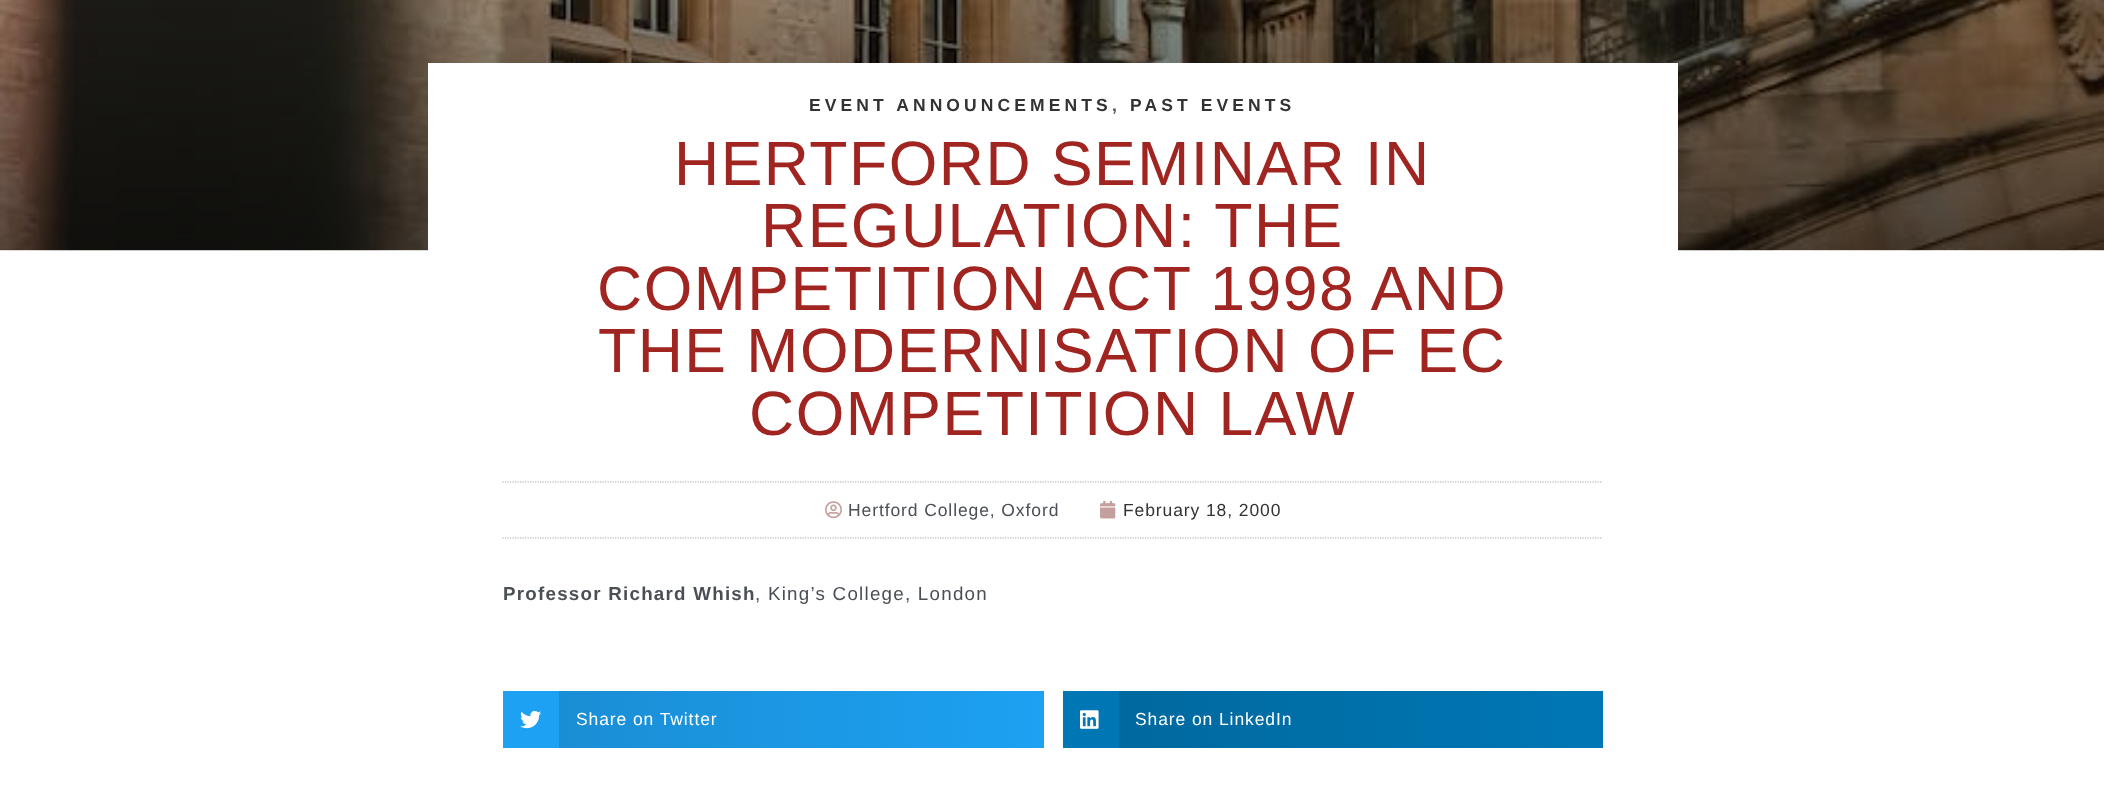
<?xml version="1.0" encoding="UTF-8"?>
<svg xmlns="http://www.w3.org/2000/svg" xmlns:xlink="http://www.w3.org/1999/xlink" width="2104" height="795">
  <defs>
    <linearGradient id="g1" gradientUnits="userSpaceOnUse" x1="559" y1="719" x2="1044" y2="719"><stop offset="0" stop-color="#1a8ed5" /><stop offset="1" stop-color="#1da1f2" /></linearGradient>
    <linearGradient id="g2" gradientUnits="userSpaceOnUse" x1="1119" y1="719" x2="1603" y2="719"><stop offset="0" stop-color="#00699f" /><stop offset="1" stop-color="#0077b5" /></linearGradient>
  </defs>
  <rect width="100%" height="100%" fill="#ffffff" />
  <image x="0" y="0" width="2104" height="251" xlink:href="image1.png" />
  <rect x="428" y="63" width="1250" height="188" fill="#ffffff" />
  <path d="M 502.5 482 h 1100" fill="none" stroke="#aaaaaa" stroke-width="1.2" stroke-dasharray="1.25 1.25" />
  <path d="M 502.5 538 h 1100" fill="none" stroke="#aaaaaa" stroke-width="1.2" stroke-dasharray="1.25 1.25" />
  <image x="825" y="501" width="17" height="18" xlink:href="image2.png" />
  <image x="1100" y="500" width="16" height="19" xlink:href="image3.png" />
  <rect x="503" y="691" width="56" height="57" fill="#1da1f2" />
  <image x="520" y="710" width="22" height="19" xlink:href="image4.png" />
  <rect x="559" y="691" width="485" height="57" fill="url(#g1)" />
  <rect x="1063" y="691" width="56" height="57" fill="#0077b5" />
  <image x="1080" y="710" width="19" height="19" xlink:href="image5.png" />
  <rect x="1119" y="691" width="484" height="57" fill="url(#g2)" />
  <text x="809" y="111" style="font-family: Liberation Sans; font-size: 17.5px; font-weight: bold; letter-spacing: 4.1px; fill: #333333">EVENT ANNOUNCEMENTS</text>
  <text x="1112" y="111" style="font-family: Liberation Sans; font-size: 17.5px; font-weight: bold; letter-spacing: 4.1px; fill: #4a4f56">,</text>
  <text x="1130" y="111" style="font-family: Liberation Sans; font-size: 17.5px; font-weight: bold; letter-spacing: 4.1px; fill: #333333">PAST EVENTS</text>
  <text x="674" y="185" style="font-family: Liberation Sans; font-size: 62.5px; letter-spacing: 1.5px; fill: #a02521">HERTFORD SEMINAR IN</text>
  <text x="761" y="247" style="font-family: Liberation Sans; font-size: 62.5px; letter-spacing: 1.5px; fill: #a02521">REGULATION: THE</text>
  <text x="597" y="310" style="font-family: Liberation Sans; font-size: 62.5px; letter-spacing: 1.5px; fill: #a02521">COMPETITION ACT 1998 AND</text>
  <text x="598" y="372" style="font-family: Liberation Sans; font-size: 62.5px; letter-spacing: 1.5px; fill: #a02521">THE MODERNISATION OF EC</text>
  <text x="749" y="435" style="font-family: Liberation Sans; font-size: 62.5px; letter-spacing: 1.5px; fill: #a02521">COMPETITION LAW</text>
  <text x="848" y="516" style="font-family: Liberation Sans; font-size: 17.5px; letter-spacing: 0.9px; fill: #4a4f56">Hertford College, Oxford</text>
  <text x="1123" y="516" style="font-family: Liberation Sans; font-size: 17.5px; letter-spacing: 0.9px; fill: #333333">February 18, 2000</text>
  <text x="503" y="600" style="font-family: Liberation Sans; font-size: 18.75px; font-weight: bold; letter-spacing: 1.25px; fill: #4a4f56">Professor Richard Whish</text>
  <text x="755" y="600" style="font-family: Liberation Sans; font-size: 18.75px; letter-spacing: 1.25px; fill: #4a4f56">, King’s College, London</text>
  <text x="576" y="725" style="font-family: Liberation Sans; font-size: 17.5px; letter-spacing: 0.9px; fill: #ffffff">Share on Twitter</text>
  <text x="1135" y="725" style="font-family: Liberation Sans; font-size: 17.5px; letter-spacing: 0.9px; fill: #ffffff">Share on LinkedIn</text>
</svg>
